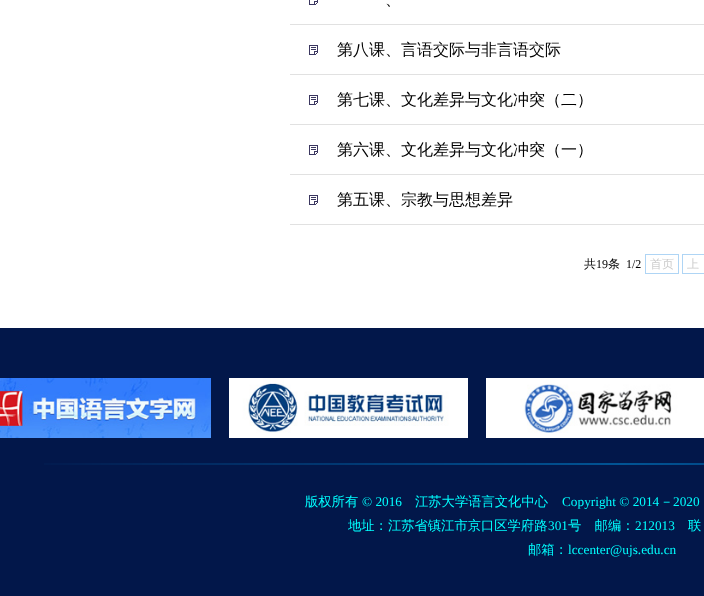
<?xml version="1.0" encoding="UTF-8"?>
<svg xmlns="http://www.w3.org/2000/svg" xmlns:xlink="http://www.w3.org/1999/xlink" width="704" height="596">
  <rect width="100%" height="100%" fill="#ffffff" />
  <rect x="290" y="24" width="414" height="1" fill="#e1e1e1" />
  <image x="309" y="0" width="9" height="5" xlink:href="image1.png" />
  <rect x="290" y="74" width="414" height="1" fill="#e1e1e1" />
  <image x="309" y="45" width="9" height="10" xlink:href="image2.png" />
  <rect x="290" y="124" width="414" height="1" fill="#e1e1e1" />
  <image x="309" y="95" width="9" height="10" xlink:href="image2.png" />
  <rect x="290" y="174" width="414" height="1" fill="#e1e1e1" />
  <image x="309" y="145" width="9" height="10" xlink:href="image2.png" />
  <rect x="290" y="224" width="414" height="1" fill="#e1e1e1" />
  <image x="309" y="195" width="9" height="10" xlink:href="image2.png" />
  <rect x="645.5" y="254.5" width="33" height="19" fill="none" stroke="#afd5f5" />
  <rect x="682.5" y="254.5" width="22" height="19" fill="none" stroke="#afd5f5" />
  <rect y="328" width="704" height="268" fill="#02174a" />
  <image x="0" y="378" width="211" height="60" xlink:href="image3.png" />
  <image x="229" y="378" width="239" height="60" xlink:href="image4.png" />
  <image x="486" y="378" width="218" height="60" xlink:href="image5.png" />
  <image x="44" y="463" width="660" height="2" xlink:href="image6.png" />
  <text x="385" y="5" style="font-family: WenQuanYi Zen Hei; font-size: 16px; font-weight: 500; fill: #000000">、</text>
  <text x="337" y="55" style="font-family: WenQuanYi Zen Hei; font-size: 16px; font-weight: 500; fill: #000000">第八课、言语交际与非言语交际</text>
  <text x="337" y="105" style="font-family: WenQuanYi Zen Hei; font-size: 16px; font-weight: 500; fill: #000000">第七课、文化差异与文化冲突（二）</text>
  <text x="337" y="155" style="font-family: WenQuanYi Zen Hei; font-size: 16px; font-weight: 500; fill: #000000">第六课、文化差异与文化冲突（一）</text>
  <text x="337" y="205" style="font-family: WenQuanYi Zen Hei; font-size: 16px; font-weight: 500; fill: #000000">第五课、宗教与思想差异</text>
  <text x="584" y="268" style="font-family: WenQuanYi Zen Hei; font-size: 12px; font-weight: 500; fill: #000000">共</text>
  <text x="596" y="268" style="font-family: Liberation Serif; font-size: 12px; fill: #000000">19</text>
  <text x="608" y="268" style="font-family: WenQuanYi Zen Hei; font-size: 12px; font-weight: 500; fill: #000000">条</text>
  <text x="626" y="268" style="font-family: Liberation Serif; font-size: 12px; fill: #000000">1/2</text>
  <text x="650" y="268" style="font-family: WenQuanYi Zen Hei; font-size: 12px; font-weight: 500; fill: #cccccc">首页</text>
  <text x="687" y="268" style="font-family: WenQuanYi Zen Hei; font-size: 12px; font-weight: 500; fill: #cccccc">上</text>
  <text x="305" y="506" style="font-family: WenQuanYi Zen Hei; font-size: 13.3px; font-weight: 500; fill: #00ffff">版权所有</text>
  <text x="362" y="506" style="font-family: Liberation Serif; font-size: 13.3px; fill: #00ffff">© 2016</text>
  <text x="415" y="506" style="font-family: WenQuanYi Zen Hei; font-size: 13.3px; font-weight: 500; fill: #00ffff">江苏大学语言文化中心</text>
  <text x="562" y="506" style="font-family: Liberation Serif; font-size: 13.3px; fill: #00ffff">Copyright © 2014</text>
  <text x="660" y="506" style="font-family: WenQuanYi Zen Hei; font-size: 13.3px; font-weight: 500; fill: #00ffff">－</text>
  <text x="673" y="506" style="font-family: Liberation Serif; font-size: 13.3px; fill: #00ffff">2020</text>
  <text x="348" y="530" style="font-family: WenQuanYi Zen Hei; font-size: 13.3px; font-weight: 500; fill: #00ffff">地址：江苏省镇江市京口区学府路</text>
  <text x="548" y="530" style="font-family: Liberation Serif; font-size: 13.3px; fill: #00ffff">301</text>
  <text x="568" y="530" style="font-family: WenQuanYi Zen Hei; font-size: 13.3px; font-weight: 500; fill: #00ffff">号　邮编：</text>
  <text x="635" y="530" style="font-family: Liberation Serif; font-size: 13.3px; fill: #00ffff">212013</text>
  <text x="688" y="530" style="font-family: WenQuanYi Zen Hei; font-size: 13.3px; font-weight: 500; fill: #00ffff">联</text>
  <text x="528" y="554" style="font-family: WenQuanYi Zen Hei; font-size: 13.3px; font-weight: 500; fill: #00ffff">邮箱：</text>
  <text x="568" y="554" style="font-family: Liberation Serif; font-size: 13.3px; fill: #00ffff">lccenter@ujs.edu.cn</text>
</svg>
